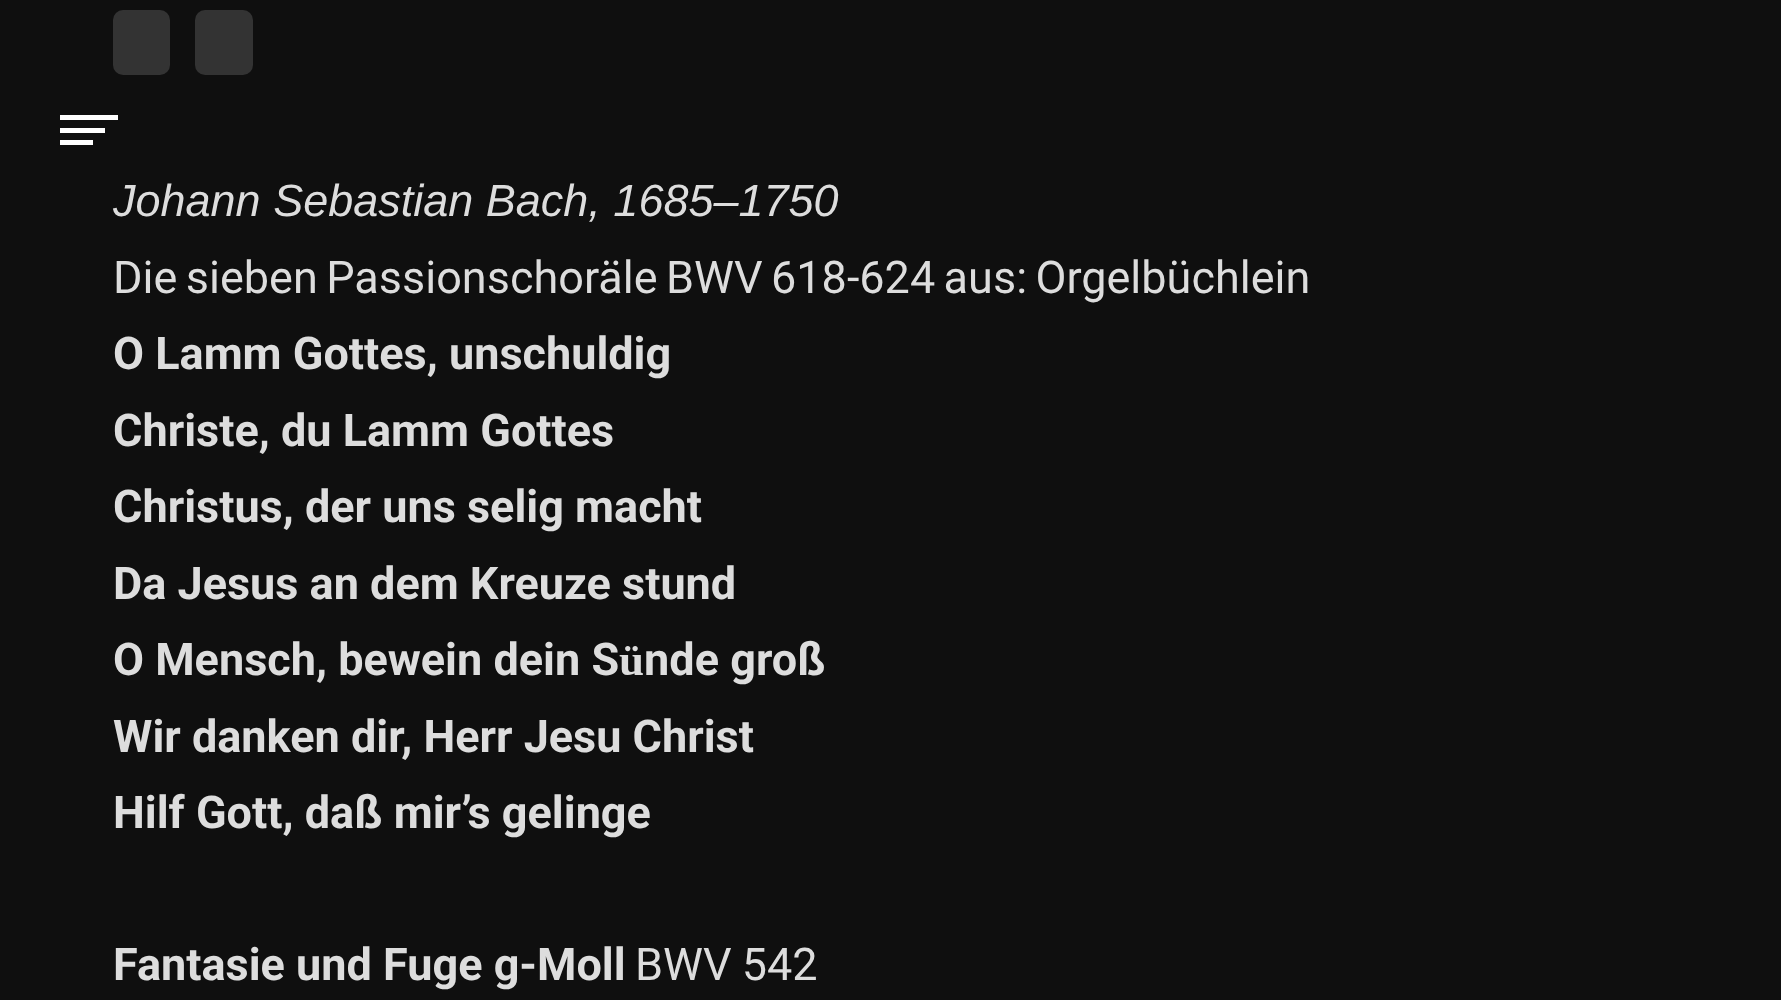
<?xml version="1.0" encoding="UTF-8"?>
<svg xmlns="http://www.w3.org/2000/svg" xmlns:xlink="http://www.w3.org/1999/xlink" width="1781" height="1000">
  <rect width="100%" height="100%" fill="#0f0f0f" />
  <rect x="60" y="128" width="45" height="5" fill="#ffffff" />
  <rect x="60" y="115" width="58" height="5" fill="#ffffff" />
  <rect x="60" y="140" width="33" height="5" fill="#ffffff" />
  <rect x="113" y="10" width="57" height="65" rx="10" fill="#333333" />
  <rect x="195" y="10" width="58" height="65" rx="10" fill="#333333" />
  <text x="113" y="216" style="font-family: Liberation Sans; font-size: 45px; font-style: italic; fill: #dddddd">Johann Sebastian Bach, 1685–1750</text>
  <text x="113" y="293" word-spacing="-2.75" style="font-family: Roboto; font-size: 45px; fill: #dddddd">Die sieben Passionschoräle BWV 618-624 aus: Orgelbüchlein</text>
  <text x="113" y="369" style="font-family: Roboto; font-size: 45px; font-weight: bold; fill: #dddddd">O Lamm Gottes, unschuldig</text>
  <text x="113" y="446" style="font-family: Roboto; font-size: 45px; font-weight: bold; fill: #dddddd">Christe, du Lamm Gottes</text>
  <text x="113" y="522" style="font-family: Roboto; font-size: 45px; font-weight: bold; fill: #dddddd">Christus, der uns selig macht</text>
  <text x="113" y="599" style="font-family: Roboto; font-size: 45px; font-weight: bold; fill: #dddddd">Da Jesus an dem Kreuze stund</text>
  <text x="113" y="675" style="font-family: Roboto; font-size: 45px; font-weight: bold; fill: #dddddd">O Mensch, bewein dein Sünde groß</text>
  <text x="113" y="752" style="font-family: Roboto; font-size: 45px; font-weight: bold; fill: #dddddd">Wir danken dir, Herr Jesu Christ</text>
  <text x="113" y="828" style="font-family: Roboto; font-size: 45px; font-weight: bold; fill: #dddddd">Hilf Gott, daß mir’s gelinge</text>
  <text x="113" y="980" style="font-family: Roboto; font-size: 45px; font-weight: bold; fill: #dddddd">Fantasie und Fuge g-Moll</text>
  <text x="635" y="980" word-spacing="-1" style="font-family: Roboto; font-size: 45px; fill: #dddddd">BWV 542</text>
</svg>
